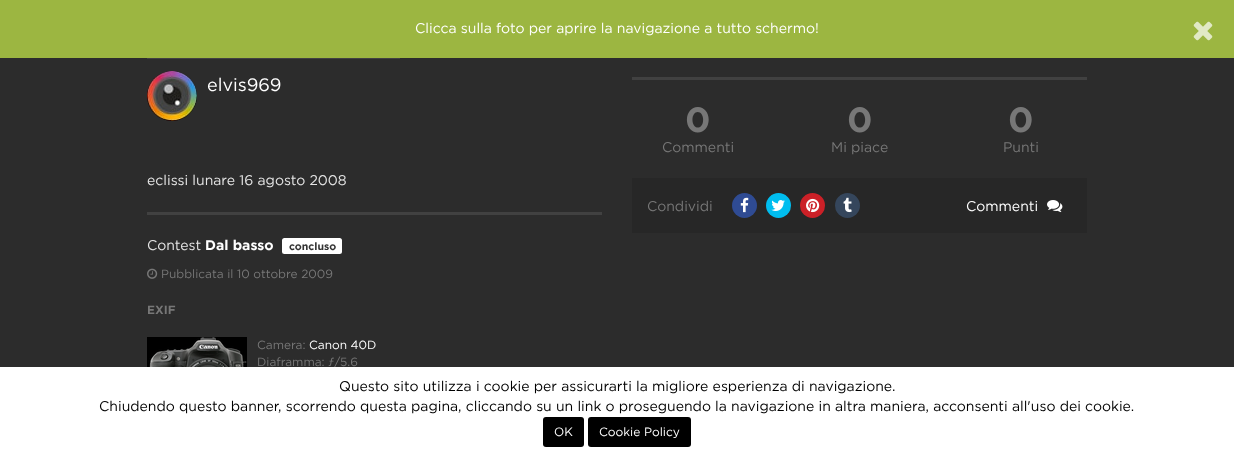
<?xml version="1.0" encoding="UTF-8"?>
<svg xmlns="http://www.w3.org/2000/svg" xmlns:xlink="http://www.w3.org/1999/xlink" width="1234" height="457">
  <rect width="100%" height="100%" fill="#2c2c2c" />
  <rect width="1234" height="58" fill="#9cb641" />
  <image x="1193" y="21" width="20" height="20" xlink:href="image1.png" />
  <rect x="147" y="58" width="253" height="1" fill="#414141" />
  <image x="147" y="71" width="50" height="50" xlink:href="image2.png" />
  <rect x="147" y="212" width="455" height="3" fill="#414141" />
  <rect x="282" y="238" width="60" height="16" rx="2.5" fill="#ffffff" />
  <image x="147" y="268" width="11" height="11" xlink:href="image3.png" />
  <image x="147" y="337" width="100" height="30" xlink:href="image4.png" />
  <rect x="632" y="77" width="455" height="3" fill="#414141" />
  <rect x="632" y="178" width="455" height="55" fill="#272727" />
  <circle cx="744.5" cy="205.5" r="12.5" fill="#2f4b93" />
  <image x="740" y="197" width="9" height="16" xlink:href="image5.png" />
  <circle cx="778.5" cy="205.5" r="12.5" fill="#00bdef" />
  <image x="771" y="200" width="14" height="11" xlink:href="image6.png" />
  <circle cx="812.5" cy="205.5" r="12.5" fill="#cb2027" />
  <image x="806" y="198" width="14" height="15" xlink:href="image7.png" />
  <circle cx="847.5" cy="205.5" r="12.5" fill="#35465c" />
  <image x="843" y="197" width="9" height="16" xlink:href="image8.png" />
  <image x="1047" y="200" width="16" height="13" xlink:href="image9.png" />
  <text x="415" y="33" style="font-family: Gotham; font-size: 14px; fill: #ffffff">Clicca sulla foto per aprire la navigazione a tutto schermo!</text>
  <text x="207" y="91" style="font-family: Gotham; font-size: 18px; fill: #ffffff">elvis969</text>
  <text x="147" y="185" style="font-family: Gotham; font-size: 14px; fill: #e6e6e6">eclissi lunare 16 agosto 2008</text>
  <text x="147" y="250" style="font-family: Gotham; font-size: 14px; fill: #e6e6e6">Contest</text>
  <text x="205" y="250" style="font-family: Gotham; font-size: 14px; font-weight: bold; fill: #ffffff">Dal basso</text>
  <text x="289" y="250" style="font-family: Gotham; font-size: 10.5px; font-weight: bold; fill: #333333">concluso</text>
  <text x="161" y="278" style="font-family: Gotham; font-size: 11.9px; fill: #777777">Pubblicata il 10 ottobre 2009</text>
  <text x="147" y="314" style="font-family: Gotham; font-size: 11.9px; font-weight: bold; fill: #777777">EXIF</text>
  <text x="257" y="349" style="font-family: Gotham; font-size: 11.9px; fill: #777777">Camera:</text>
  <text x="309" y="349" style="font-family: Gotham; font-size: 11.9px; fill: #ffffff">Canon 40D</text>
  <text x="257" y="366" style="font-family: Gotham; font-size: 11.9px; fill: #777777">Diaframma: ƒ/5.6</text>
  <text x="685" y="132" style="font-family: Gotham; font-size: 35px; font-weight: bold; fill: #777777">0</text>
  <text x="662" y="152" style="font-family: Gotham; font-size: 14px; fill: #777777">Commenti</text>
  <text x="847" y="132" style="font-family: Gotham; font-size: 35px; font-weight: bold; fill: #777777">0</text>
  <text x="831" y="152" style="font-family: Gotham; font-size: 14px; fill: #777777">Mi piace</text>
  <text x="1008" y="132" style="font-family: Gotham; font-size: 35px; font-weight: bold; fill: #777777">0</text>
  <text x="1003" y="152" style="font-family: Gotham; font-size: 14px; fill: #777777">Punti</text>
  <text x="647" y="211" style="font-family: Gotham; font-size: 14px; fill: #777777">Condividi</text>
  <text x="966" y="211" style="font-family: Gotham; font-size: 14px; fill: #ffffff">Commenti</text>
  <rect y="367" width="1234" height="90" fill="#ffffff" />
  <text x="339" y="391" style="font-family: Gotham; font-size: 14px; fill: #000000">Questo sito utilizza i cookie per assicurarti la migliore esperienza di navigazione.</text>
  <text x="99" y="411" style="font-family: Gotham; font-size: 14px; fill: #000000">Chiudendo questo banner, scorrendo questa pagina, cliccando su un link o proseguendo la navigazione in altra maniera, acconsenti all'uso dei cookie.</text>
  <rect x="543" y="417" width="41" height="30" rx="3" fill="#000000" />
  <text x="554" y="436" style="font-family: Gotham; font-size: 12px; fill: #ffffff">OK</text>
  <rect x="588" y="417" width="103" height="30" rx="3" fill="#000000" />
  <text x="599" y="436" style="font-family: Gotham; font-size: 12px; fill: #ffffff">Cookie Policy</text>
</svg>
